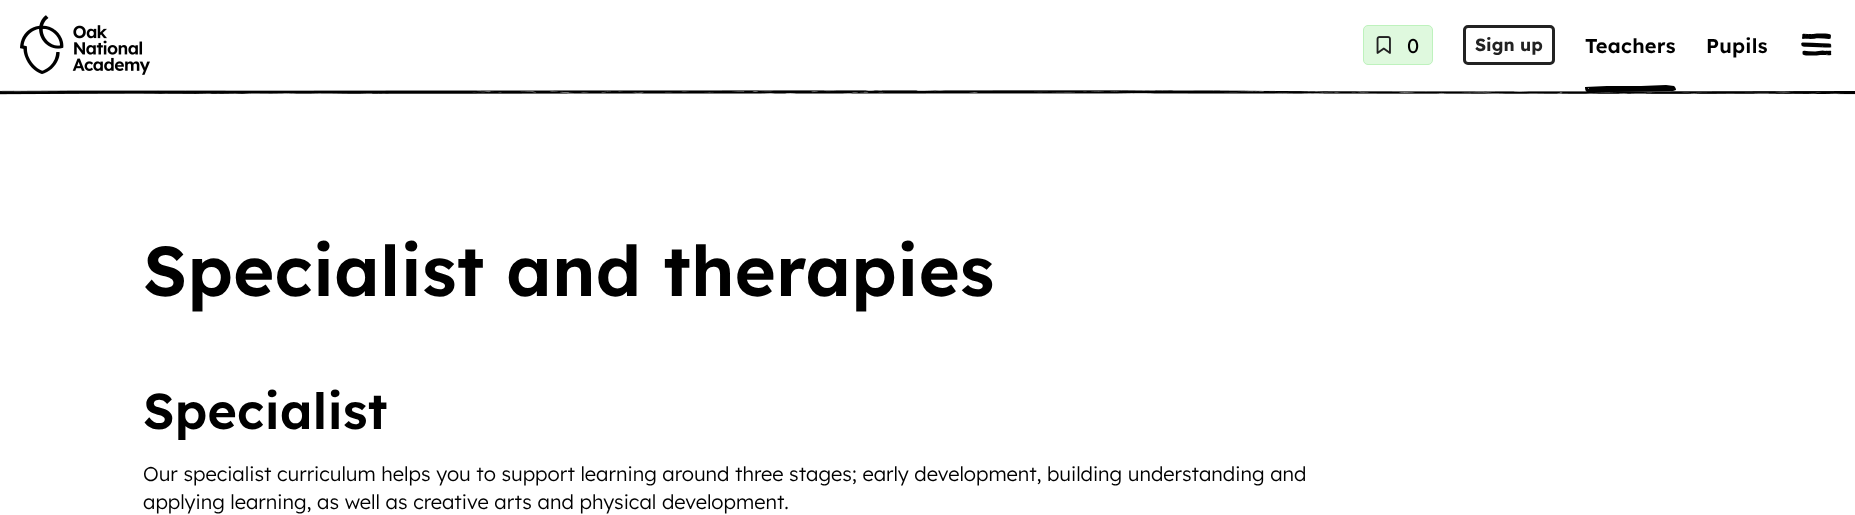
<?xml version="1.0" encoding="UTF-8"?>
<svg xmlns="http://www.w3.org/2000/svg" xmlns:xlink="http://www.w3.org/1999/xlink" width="1855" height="515">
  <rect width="100%" height="100%" fill="#ffffff" />
  <image x="20" y="15" width="130" height="60" xlink:href="image1.png" />
  <rect x="1363.5" y="25.5" width="69" height="39" rx="4.5" fill="#dff9de" stroke="#bef2bd" />
  <image x="1376" y="36" width="15" height="18" xlink:href="image2.png" />
  <rect x="1464.5" y="26.5" width="89" height="37" rx="3.5" fill="none" stroke="#222222" stroke-width="3" />
  <image x="0" y="90" width="1855" height="5" xlink:href="image4.png" />
  <path d="M 1676 90 l -3 1 l -59 1 c -6 0 -23 1 -27 0 c -2 -1 -2 -4 -2 -5 l 22 -1 h 34 l 25 -1 l 8 1 c 1 1 2 2 2 4 z m -87 1 h -1 z m -1 -3 c 0 1 0 1 1 1 z m 24 -1 l -1 -1 z m 1 2 h 1 z m -26 -2 h 1 z" fill="#000000" />
  <image x="1801" y="33" width="31" height="23" xlink:href="image3.png" />
  <text x="1407" y="53" style="font-family: Lexend; font-size: 20px; letter-spacing: 0.25px; fill: #000000">0</text>
  <text x="1475" y="51" style="font-family: Lexend; font-size: 17.5px; font-weight: bold; fill: #222222">Sign up</text>
  <text x="1585" y="53" style="font-family: Lexend; font-size: 20px; font-weight: 600; letter-spacing: 0.25px; fill: #000000">Teachers</text>
  <text x="1706" y="53" style="font-family: Lexend; font-size: 20px; font-weight: 600; letter-spacing: 0.25px; fill: #000000">Pupils</text>
  <text x="143" y="296" style="font-family: Lexend; font-size: 70px; font-weight: 600; letter-spacing: 0.25px; fill: #000000">Specialist and therapies</text>
  <text x="143" y="429" style="font-family: Lexend; font-size: 50px; font-weight: 600; letter-spacing: 0.25px; fill: #000000">Specialist</text>
  <text x="143" y="481" style="font-family: Lexend; font-size: 20px; font-weight: 300; fill: #000000">Our specialist curriculum helps you to support learning around three stages; early development, building understanding and</text>
  <text x="143" y="509" style="font-family: Lexend; font-size: 20px; font-weight: 300; fill: #000000">applying learning, as well as creative arts and physical development.</text>
</svg>
